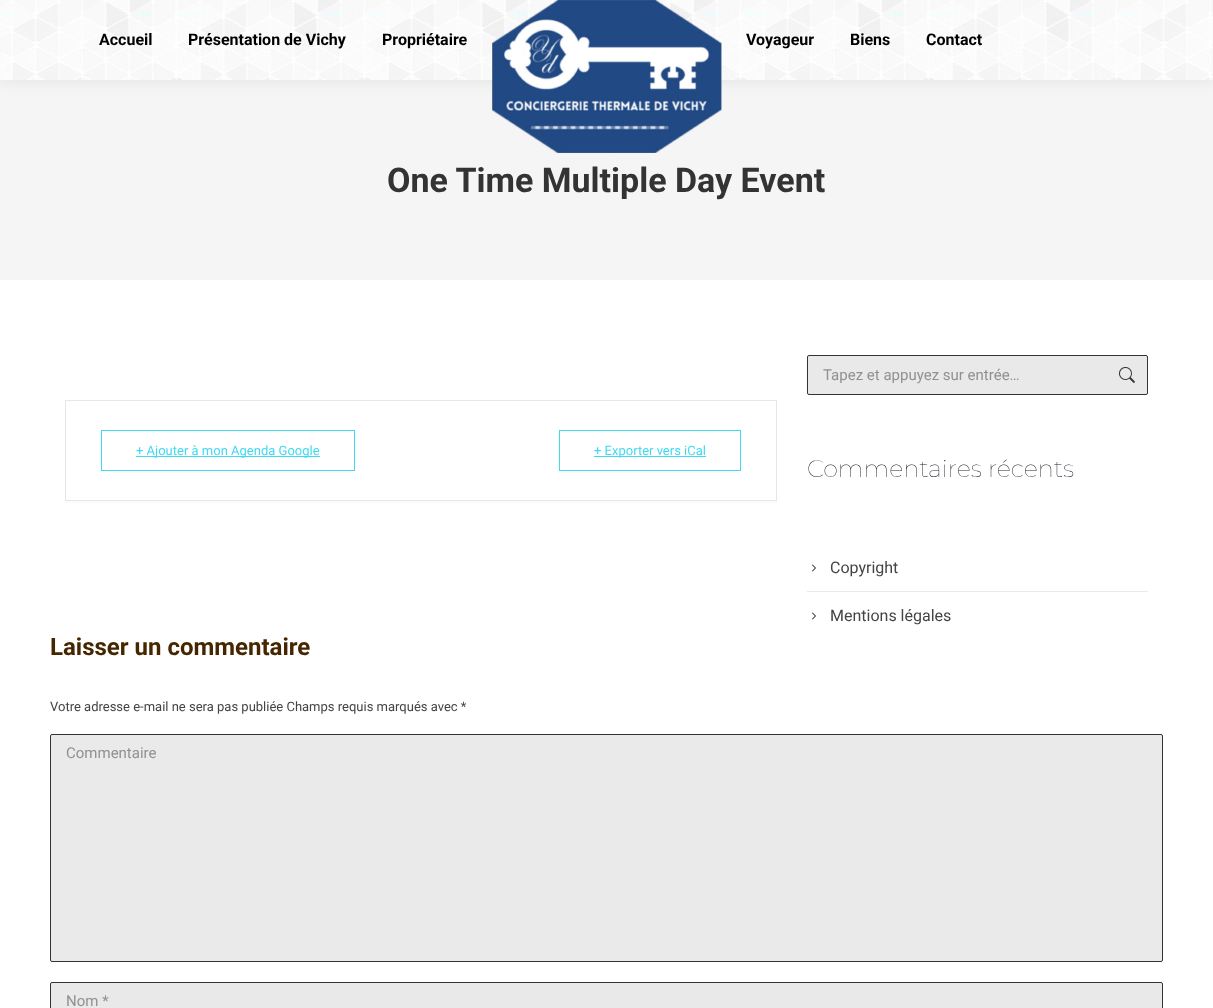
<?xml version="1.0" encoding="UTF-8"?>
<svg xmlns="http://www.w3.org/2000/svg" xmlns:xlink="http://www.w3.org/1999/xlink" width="1213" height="1008">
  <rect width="100%" height="100%" fill="#ffffff" />
  <rect y="80" width="1213" height="200" fill="#f5f5f5" />
  <rect x="-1" y="-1" width="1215" height="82" fill="#000000" fill-opacity="0.07" filter="blur(7.5px)" />
  <image x="0" y="0" width="1213" height="80" xlink:href="image1.png" />
  <image x="492" y="0" width="230" height="153" xlink:href="image2.png" />
  <rect x="65" y="501" width="712" height="2" fill="#fbfbfb" />
  <rect x="65.5" y="400.5" width="711" height="100" fill="none" stroke="#e6e6e6" />
  <rect x="101.5" y="430.5" width="253" height="40" fill="none" stroke="#40d9f1" />
  <rect x="136" y="456" width="184" height="1" fill="#40d9f1" />
  <rect x="559.5" y="430.5" width="181" height="40" fill="none" stroke="#40d9f1" />
  <rect x="594" y="456" width="112" height="1" fill="#40d9f1" />
  <rect x="807.5" y="355.5" width="340" height="39" rx="1.5" fill="#e9e9e9" stroke="#333333" />
  <image x="1119" y="367" width="16" height="16" xlink:href="image3.png" />
  <image x="812" y="564" width="4" height="8" xlink:href="image4.png" />
  <rect x="807" y="591" width="341" height="1" fill="#ebebeb" />
  <image x="812" y="612" width="4" height="8" xlink:href="image4.png" />
  <rect x="50.5" y="734.5" width="1112" height="227" rx="1.5" fill="#eaeaea" stroke="#333333" />
  <rect x="50.5" y="982.5" width="1112" height="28" rx="1.5" fill="#e9e9e9" stroke="#333333" />
  <text x="99" y="45" style="font-family: Roboto; font-size: 16px; font-weight: bold; fill: #000000">Accueil</text>
  <text x="188" y="45" style="font-family: Roboto; font-size: 16px; font-weight: bold; fill: #000000">Présentation de Vichy</text>
  <text x="382" y="45" style="font-family: Roboto; font-size: 16px; font-weight: bold; fill: #000000">Propriétaire</text>
  <text x="746" y="45" style="font-family: Roboto; font-size: 16px; font-weight: bold; fill: #000000">Voyageur</text>
  <text x="850" y="45" style="font-family: Roboto; font-size: 16px; font-weight: bold; fill: #000000">Biens</text>
  <text x="926" y="45" style="font-family: Roboto; font-size: 16px; font-weight: bold; fill: #000000">Contact</text>
  <text x="387" y="192" style="font-family: Roboto; font-size: 34px; font-weight: bold; fill: #333333">One Time Multiple Day Event</text>
  <text x="136" y="455" style="font-family: Roboto; font-size: 13px; fill: #40d9f1">+ Ajouter à mon Agenda Google</text>
  <text x="594" y="455" style="font-family: Roboto; font-size: 13px; fill: #40d9f1">+ Exporter vers iCal</text>
  <text x="823" y="380" style="font-family: Roboto; font-size: 15px; fill: #909191">Tapez et appuyez sur entrée…</text>
  <text x="807" y="477" style="font-family: Montserrat; font-size: 24px; font-weight: 100; fill: #171c24">Commentaires récents</text>
  <text x="830" y="573" style="font-family: Roboto; font-size: 16px; fill: #444444">Copyright</text>
  <text x="830" y="621" style="font-family: Roboto; font-size: 16px; fill: #444444">Mentions légales</text>
  <text x="50" y="655" style="font-family: Roboto; font-size: 24px; font-weight: bold; fill: #452600">Laisser un commentaire</text>
  <text x="50" y="711" style="font-family: Roboto; font-size: 13px; fill: #444444">Votre adresse e-mail ne sera pas publiée Champs requis marqués avec *</text>
  <text x="66" y="758" style="font-family: Roboto; font-size: 15px; fill: #909191">Commentaire</text>
  <text x="66" y="1006" style="font-family: Roboto; font-size: 15px; fill: #909191">Nom *</text>
</svg>
